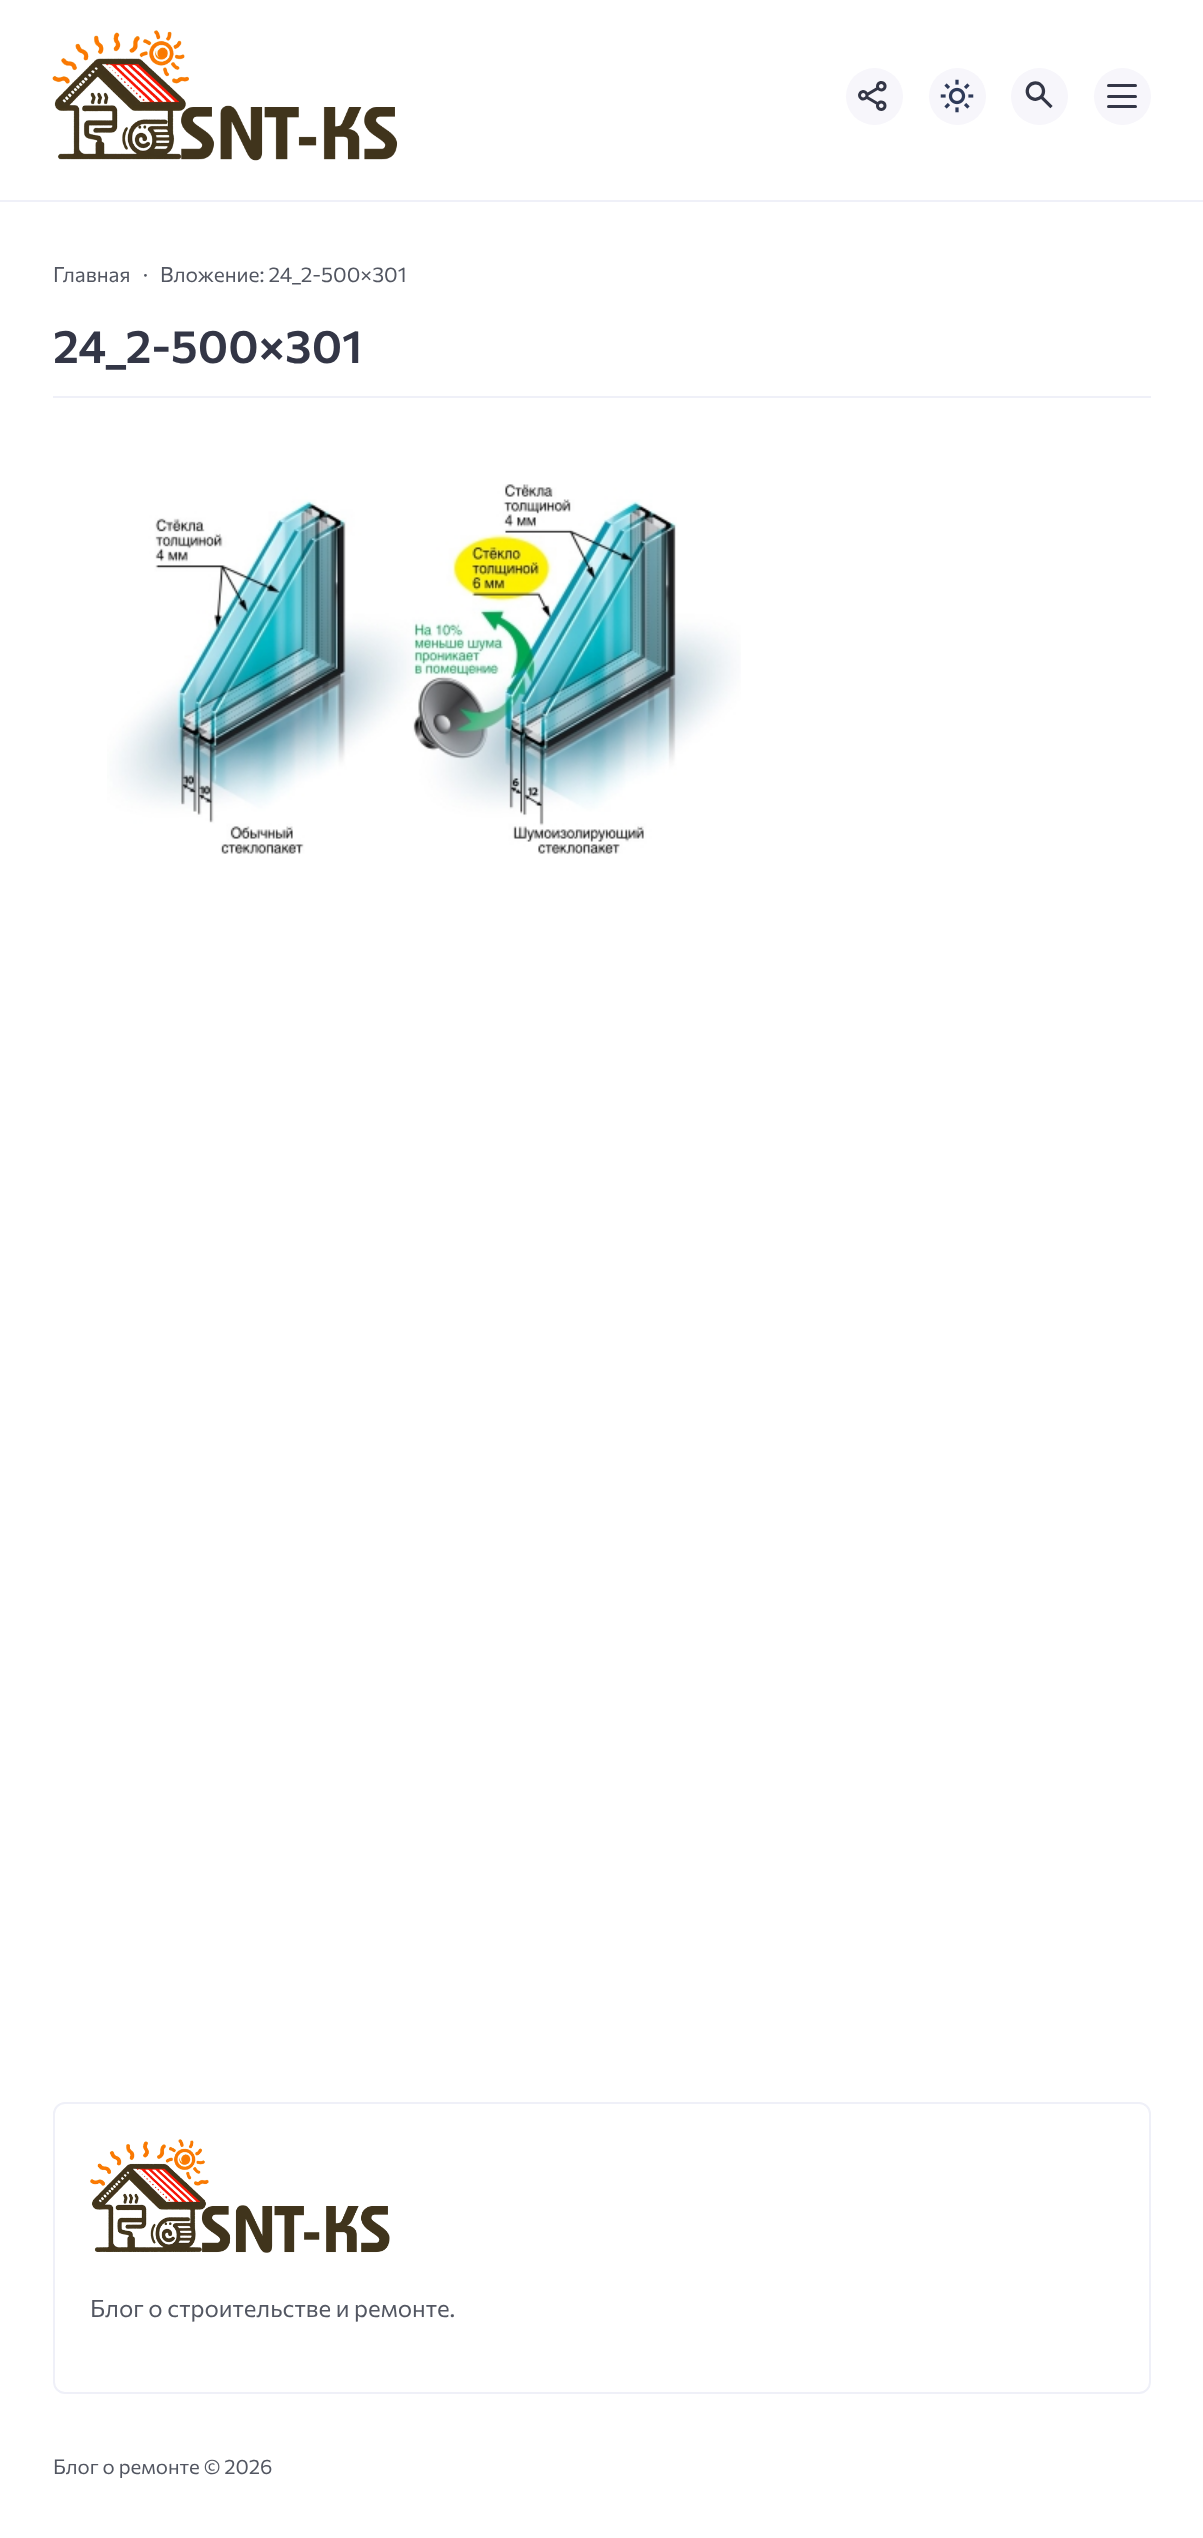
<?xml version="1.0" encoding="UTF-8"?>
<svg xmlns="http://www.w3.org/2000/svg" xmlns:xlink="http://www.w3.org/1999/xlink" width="1203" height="2538">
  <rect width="100%" height="100%" fill="#ffffff" />
  <rect y="200" width="1203" height="2" fill="#eff0f8" />
  <image x="52" y="30" width="346" height="131" xlink:href="image1.png" />
  <circle cx="874.5" cy="96.5" r="28.5" fill="#f7f6fb" />
  <image x="858" y="81" width="29" height="30" xlink:href="image2.png" />
  <circle cx="957.5" cy="96.5" r="28.5" fill="#f7f6fb" />
  <image x="940" y="79" width="34" height="34" xlink:href="image3.png" />
  <circle cx="1039.5" cy="96.5" r="28.5" fill="#f7f6fb" />
  <image x="1025" y="81" width="28" height="28" xlink:href="image4.png" />
  <circle cx="1122.5" cy="96.5" r="28.5" fill="#f7f6fb" />
  <rect x="1107" y="95" width="30" height="3" rx="1.5" fill="#333646" />
  <rect x="1107" y="84" width="30" height="3" rx="1.5" fill="#333646" />
  <rect x="1107" y="105" width="30" height="3" rx="1.5" fill="#333646" />
  <rect x="53" y="396" width="1098" height="2" fill="#eff0f8" />
  <image x="107" y="484" width="634" height="370" xlink:href="image5.png" />
  <rect x="54" y="2103" width="1096" height="290" rx="11" fill="none" stroke="#eff0f8" stroke-width="2" />
  <image x="90" y="2139" width="300" height="114" xlink:href="image6.png" />
  <text x="53" y="282" style="font-family: Commissioner; font-size: 20.9px; fill: #525661">Главная</text>
  <text x="143" y="282" style="font-family: Commissioner; font-size: 20.9px; fill: #525661">·</text>
  <text x="160" y="282" style="font-family: Commissioner; font-size: 20.9px; fill: #525661">Вложение: 24_2-500×301</text>
  <text x="53" y="363" style="font-family: Commissioner; font-size: 46px; font-weight: 600; fill: #333646">24_2-500×301</text>
  <text x="90" y="2317" style="font-family: Commissioner; font-size: 24px; fill: #525661">Блог о строительстве и ремонте.</text>
  <text x="53" y="2474" style="font-family: Commissioner; font-size: 20.4px; fill: #525661">Блог о ремонте © 2026</text>
</svg>
